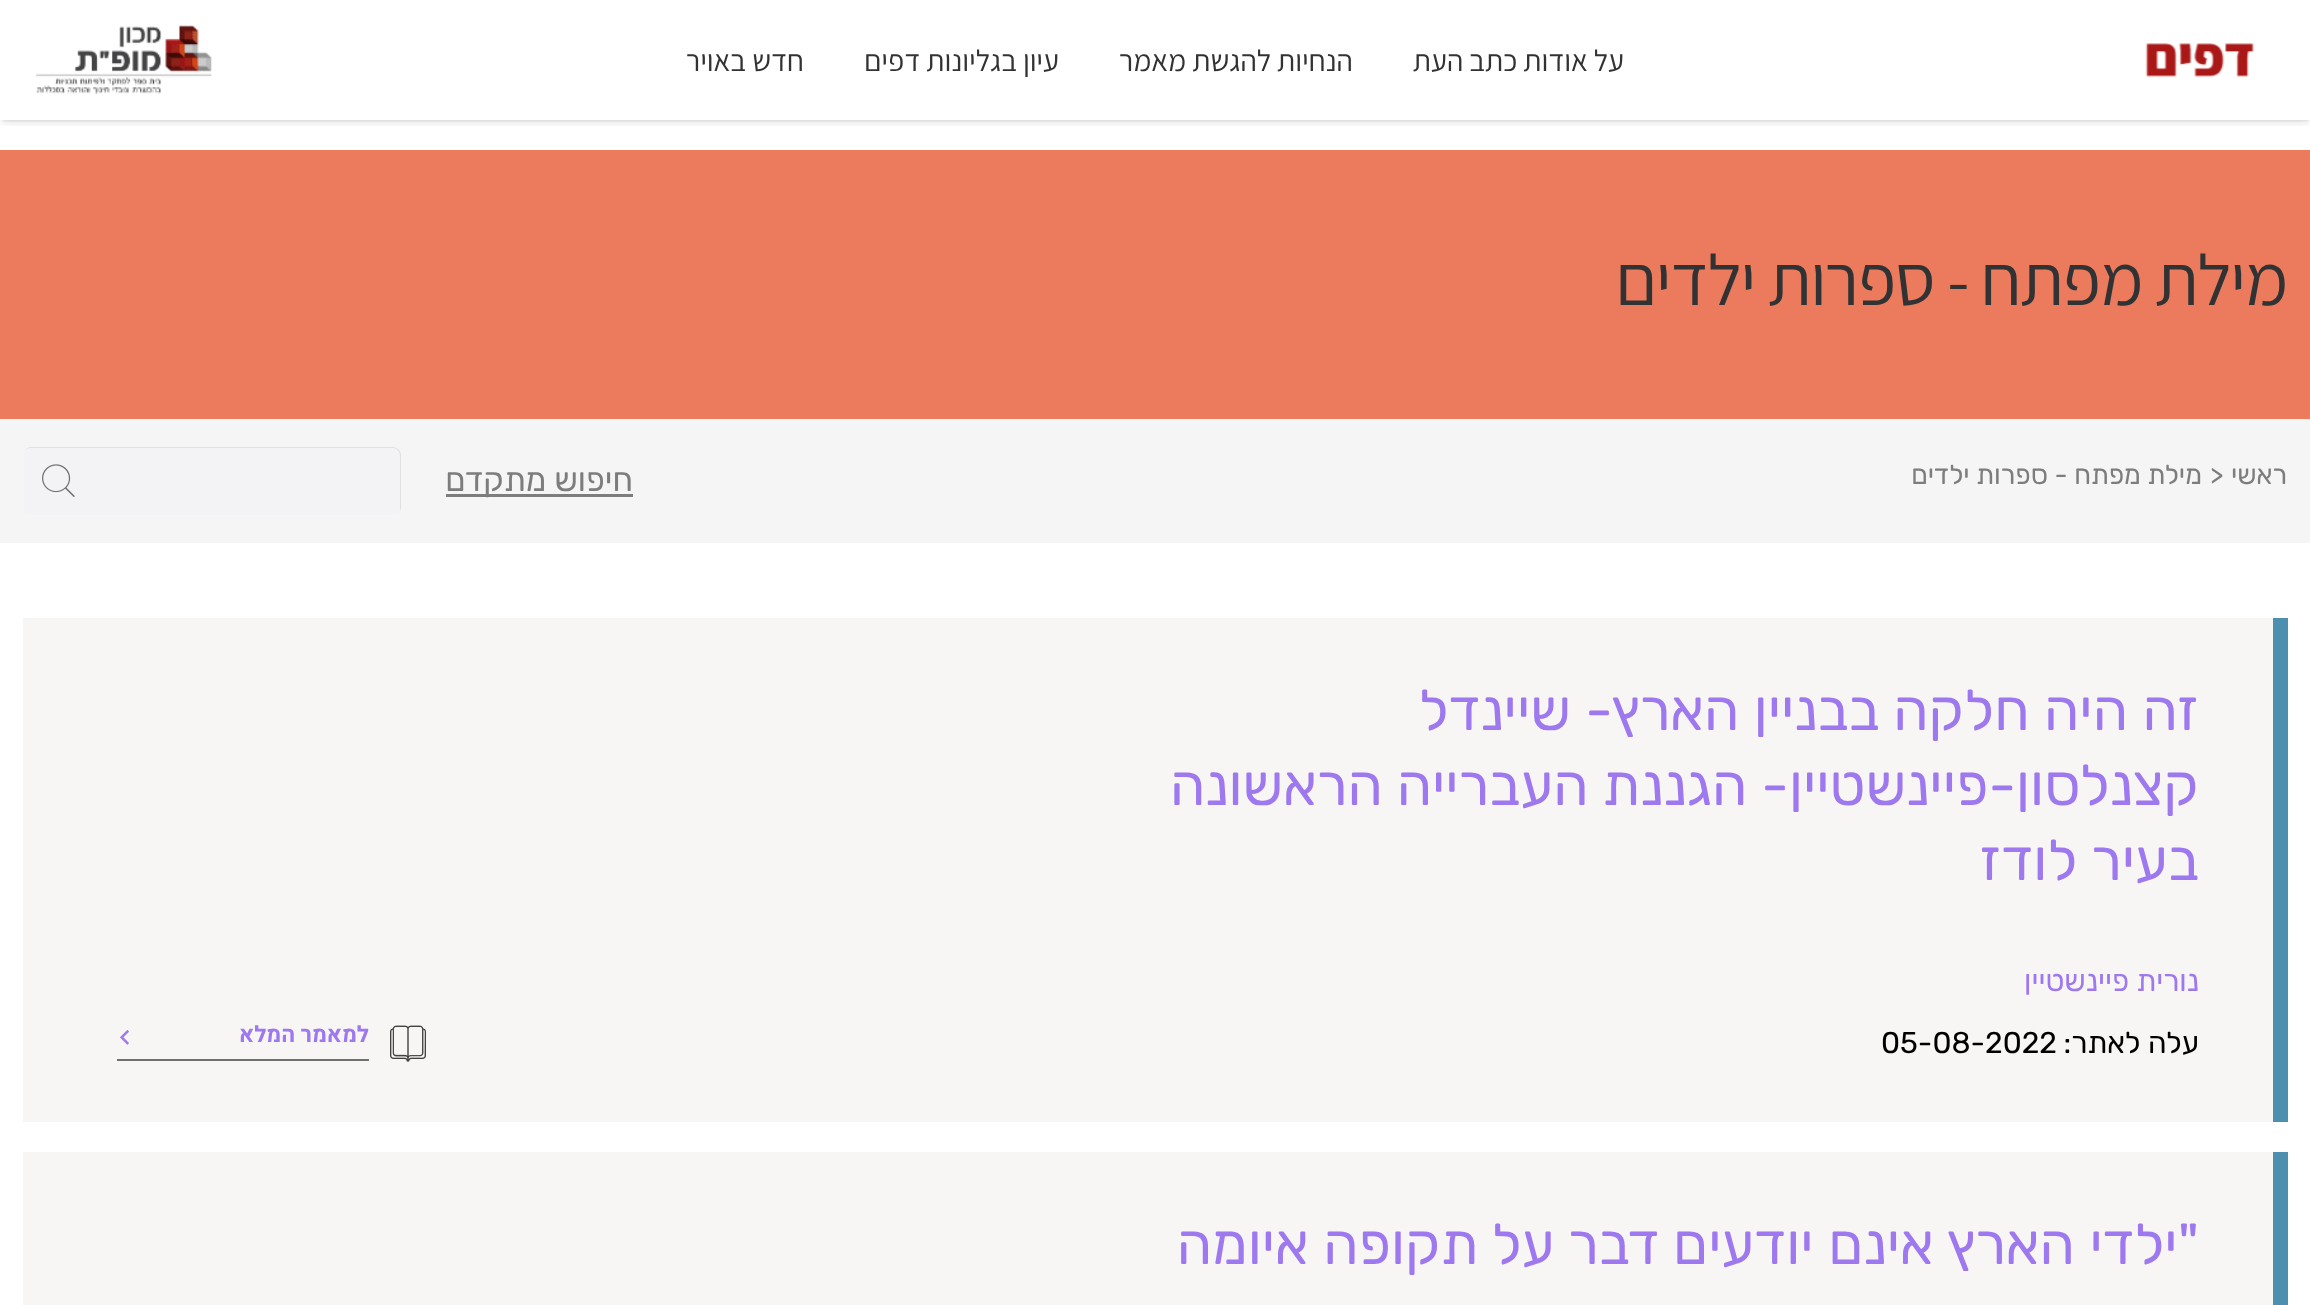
<?xml version="1.0" encoding="UTF-8"?>
<svg xmlns="http://www.w3.org/2000/svg" xmlns:xlink="http://www.w3.org/1999/xlink" width="2310" height="1305">
  <defs>
    <clipPath id="clip1"><rect x="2" y="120" width="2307" height="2" /></clipPath>
    <clipPath id="clip2"><rect x="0" y="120" width="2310" height="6" /></clipPath>
  </defs>
  <rect width="100%" height="100%" fill="#ffffff" />
  <g clip-path="url(#clip1)">
    <rect x="2" y="5" width="2307" height="117" fill="#000000" fill-opacity="0.05" filter="blur(1px)" />
  </g>
  <g clip-path="url(#clip2)">
    <rect x="2" y="6" width="2307" height="117" fill="#000000" fill-opacity="0.1" filter="blur(4px)" />
  </g>
  <image x="2145" y="43" width="110" height="35" xlink:href="image1.png" />
  <image x="36" y="25" width="176" height="70" xlink:href="image2.png" />
  <rect y="150" width="2310" height="269" fill="#ec7b5d" />
  <rect y="419" width="2310" height="124" fill="#f5f5f5" />
  <rect x="446" y="494" width="187" height="3" fill="#7d7d7d" />
  <rect x="23" y="447" width="378" height="68" rx="8" fill="#f3f2f5" />
  <path d="M 30 448 h 363 c 4 0 7 4 7 8 v 53 v 3 c 0 -2 1 -3 1 -5 v -52 c 0 -4 -4 -8 -8 -8 h -362 c -3 0 -5 2 -7 4 c 2 -2 4 -3 6 -3 z" fill="#e0dfe1" />
  <image x="42" y="464" width="33" height="33" xlink:href="image3.png" />
  <rect x="23" y="618" width="2250" height="504" fill="#f8f6f4" />
  <rect x="2273" y="618" width="15" height="504" fill="#4d8faf" />
  <image x="390" y="1025" width="36" height="37" xlink:href="image4.png" />
  <rect x="117" y="1059" width="252" height="2" fill="#707070" />
  <image x="120" y="1030" width="9" height="15" xlink:href="image5.png" />
  <rect x="23" y="1152" width="2250" height="153" fill="#f8f6f4" />
  <rect x="2273" y="1152" width="15" height="153" fill="#4d8faf" />
  <text x="1624" y="71" style="font-family: Assistant; font-size: 30px; direction: rtl; fill: #313233">על אודות כתב העת</text>
  <text x="1353" y="71" style="font-family: Assistant; font-size: 30px; direction: rtl; fill: #313233">הנחיות להגשת מאמר</text>
  <text x="1059" y="71" style="font-family: Assistant; font-size: 30px; direction: rtl; fill: #313233">עיון בגליונות דפים</text>
  <text x="804" y="71" style="font-family: Assistant; font-size: 30px; direction: rtl; fill: #313233">חדש באויר</text>
  <text x="2287" y="305" style="font-family: Assistant; font-size: 72px; letter-spacing: -1.4px; direction: rtl; fill: #313233">מילת מפתח - ספרות ילדים</text>
  <text x="2287" y="484" style="font-family: Rubik; font-size: 27px; direction: rtl; fill: #7d7d7d">ראשי</text>
  <text x="2210" y="484" style="font-family: Rubik; font-size: 27px; fill: #7d7d7d">&gt;</text>
  <text x="2202" y="484" style="font-family: Rubik; font-size: 27px; direction: rtl; fill: #7d7d7d">מילת מפתח - ספרות ילדים</text>
  <text x="633" y="491" style="font-family: Rubik; font-size: 33px; direction: rtl; fill: #7d7d7d">חיפוש מתקדם</text>
  <text x="2199" y="730" word-spacing="0.5" style="font-family: Rubik; font-size: 57px; direction: rtl; fill: #9e78ee">זה היה חלקה בבניין הארץ- שיינדל</text>
  <text x="2199" y="805" style="font-family: Rubik; font-size: 57px; direction: rtl; fill: #9e78ee">קצנלסון-פיינשטיין- הגננת העברייה הראשונה</text>
  <text x="2199" y="880" word-spacing="1" style="font-family: Rubik; font-size: 57px; direction: rtl; fill: #9e78ee">בעיר לודז</text>
  <text x="2199" y="991" style="font-family: Rubik; font-size: 30px; direction: rtl; fill: #9e78ee">נורית פיינשטיין</text>
  <text x="2199" y="1053" style="font-family: Rubik; font-size: 30px; direction: rtl; fill: #000000">עלה לאתר:</text>
  <text x="1881" y="1053" style="font-family: Rubik; font-size: 30px; fill: #000000">05-08-2022</text>
  <text x="369" y="1042" style="font-family: Heebo; font-size: 22.5px; font-weight: bold; direction: rtl; fill: #9e78ee">למאמר המלא</text>
  <text x="2199" y="1264" word-spacing="0.75" style="font-family: Rubik; font-size: 57px; direction: rtl; fill: #9e78ee">"ילדי הארץ אינם יודעים דבר על תקופה איומה</text>
</svg>
